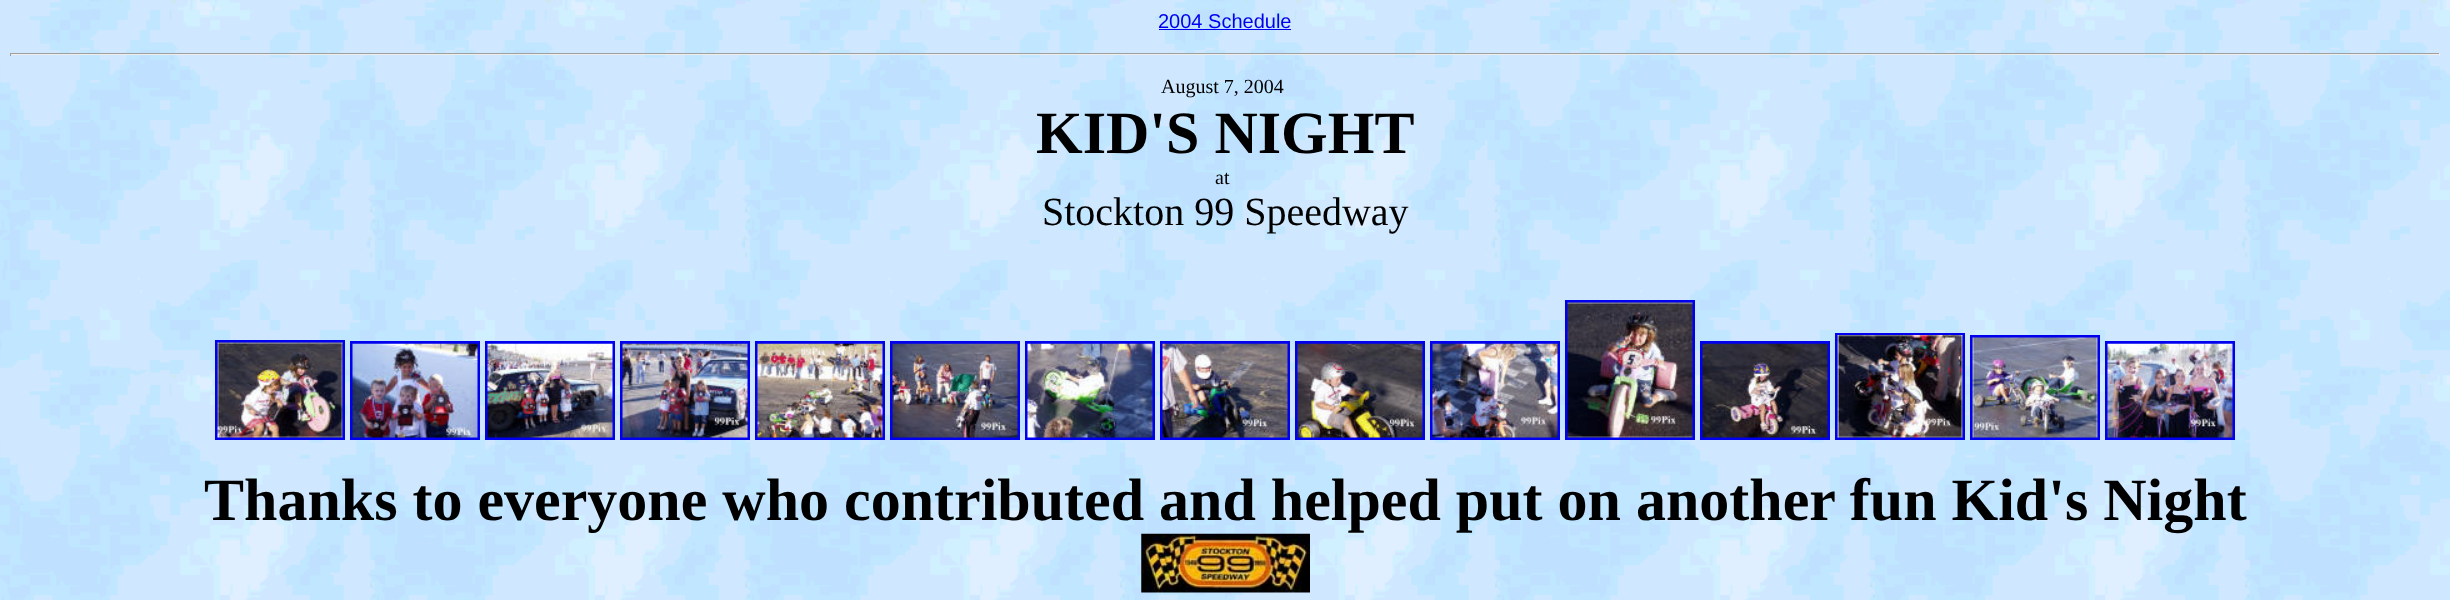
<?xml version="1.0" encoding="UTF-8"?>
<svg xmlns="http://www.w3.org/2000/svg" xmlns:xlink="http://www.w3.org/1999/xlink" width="2450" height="600">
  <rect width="100%" height="100%" fill="#ffffff" />
  <image x="0" y="0" width="2450" height="600" xlink:href="image1.png" />
  <rect x="1159" y="29" width="132" height="1" fill="#0000ee" />
  <rect x="10" y="53" width="2430" height="1" fill="#9f9f9f" />
  <rect x="2439" y="53" width="1" height="3" fill="#eeeeee" />
  <rect x="10" y="54" width="2430" height="1" fill="#eeeeee" />
  <rect x="10" y="53" width="1" height="3" fill="#9f9f9f" />
  <rect x="1566.5" y="301.5" width="127" height="137" fill="none" stroke="#0000ee" stroke-width="3" />
  <image x="1567" y="302" width="126" height="136" xlink:href="image2.png" />
  <rect x="1836.5" y="334.5" width="127" height="104" fill="none" stroke="#0000ee" stroke-width="3" />
  <image x="1837" y="335" width="126" height="103" xlink:href="image3.png" />
  <rect x="1971.5" y="336.5" width="127" height="102" fill="none" stroke="#0000ee" stroke-width="3" />
  <rect x="216.5" y="341.5" width="127" height="97" fill="none" stroke="#0000ee" stroke-width="3" />
  <rect x="351.5" y="342.5" width="127" height="96" fill="none" stroke="#0000ee" stroke-width="3" />
  <rect x="486.5" y="342.5" width="127" height="96" fill="none" stroke="#0000ee" stroke-width="3" />
  <rect x="621.5" y="342.5" width="127" height="96" fill="none" stroke="#0000ee" stroke-width="3" />
  <rect x="756.5" y="342.5" width="127" height="96" fill="none" stroke="#0000ee" stroke-width="3" />
  <rect x="891.5" y="342.5" width="127" height="96" fill="none" stroke="#0000ee" stroke-width="3" />
  <rect x="1026.5" y="342.5" width="127" height="96" fill="none" stroke="#0000ee" stroke-width="3" />
  <rect x="1161.5" y="342.5" width="127" height="96" fill="none" stroke="#0000ee" stroke-width="3" />
  <rect x="1296.5" y="342.5" width="127" height="96" fill="none" stroke="#0000ee" stroke-width="3" />
  <rect x="1431.5" y="342.5" width="127" height="96" fill="none" stroke="#0000ee" stroke-width="3" />
  <rect x="1701.5" y="342.5" width="127" height="96" fill="none" stroke="#0000ee" stroke-width="3" />
  <image x="1972" y="337" width="126" height="101" xlink:href="image4.png" />
  <rect x="2106.5" y="342.5" width="127" height="96" fill="none" stroke="#0000ee" stroke-width="3" />
  <image x="217" y="342" width="126" height="96" xlink:href="image5.png" />
  <image x="352" y="343" width="126" height="95" xlink:href="image6.png" />
  <image x="487" y="343" width="126" height="95" xlink:href="image7.png" />
  <image x="622" y="343" width="126" height="95" xlink:href="image8.png" />
  <image x="757" y="343" width="126" height="95" xlink:href="image9.png" />
  <image x="892" y="343" width="126" height="95" xlink:href="image10.png" />
  <image x="1027" y="343" width="126" height="95" xlink:href="image11.png" />
  <image x="1162" y="343" width="126" height="95" xlink:href="image12.png" />
  <image x="1297" y="343" width="126" height="95" xlink:href="image13.png" />
  <image x="1432" y="343" width="126" height="95" xlink:href="image14.png" />
  <image x="1702" y="343" width="126" height="95" xlink:href="image15.png" />
  <image x="2107" y="343" width="126" height="95" xlink:href="image16.png" />
  <text x="1158" y="28" style="font-family: Liberation Sans; font-size: 20px; fill: #0000ee">2004 Schedule</text>
  <text x="1161" y="93" style="font-family: Liberation Serif; font-size: 20px; fill: #000000">August 7, 2004</text>
  <text x="1036" y="153" style="font-family: Liberation Serif; font-size: 60px; font-weight: bold; fill: #000000">KID'S NIGHT</text>
  <text x="1215" y="184" style="font-family: Liberation Serif; font-size: 20px; fill: #000000">at</text>
  <text x="1042" y="225" style="font-family: Liberation Serif; font-size: 40px; fill: #000000">Stockton 99 Speedway</text>
  <text x="204" y="520" style="font-family: Liberation Serif; font-size: 60px; font-weight: bold; fill: #000000">Thanks to everyone who contributed and helped put on another fun Kid's Night</text>
  <image x="1141" y="533" width="169" height="60" xlink:href="image17.png" />
</svg>
